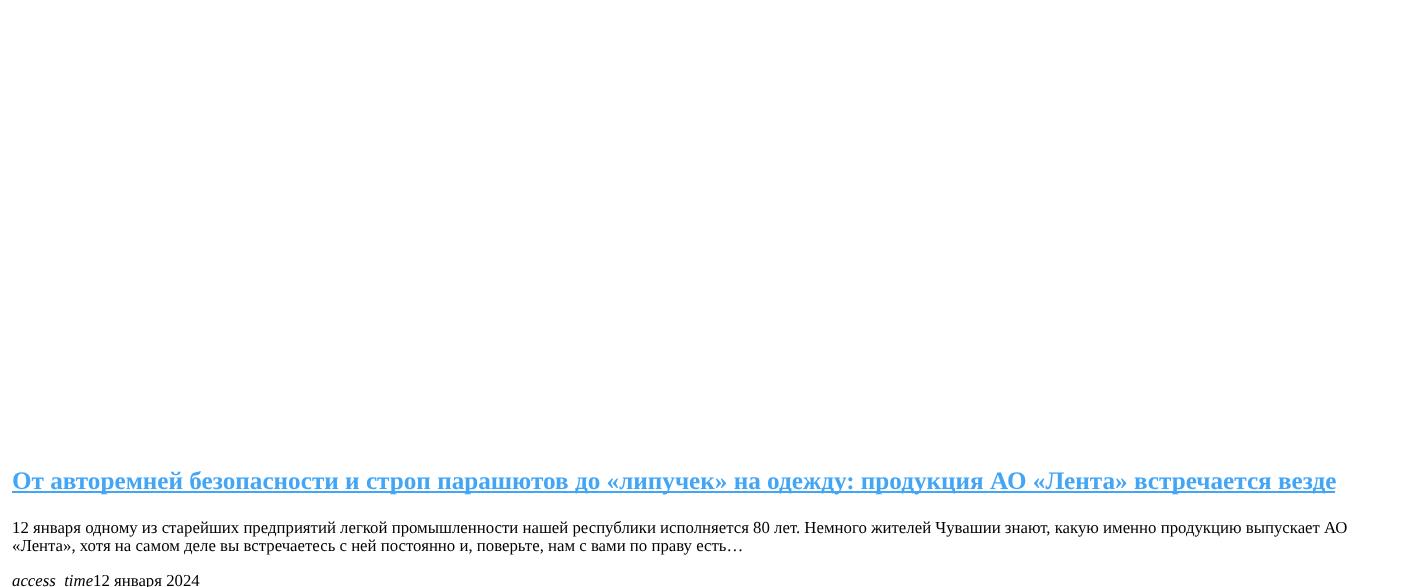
<?xml version="1.0" encoding="UTF-8"?>
<svg xmlns="http://www.w3.org/2000/svg" xmlns:xlink="http://www.w3.org/1999/xlink" width="1412" height="587">
  <rect width="100%" height="100%" fill="#ffffff" />
  <rect x="12" y="491" width="1323" height="2" fill="#42a5f5" />
  <text x="12" y="489" style="font-family: Liberation Serif; font-size: 25.2px; font-weight: bold; fill: #42a5f5">От авторемней безопасности и строп парашютов до «липучек» на одежду: продукция АО «Лента» встречается везде</text>
  <text x="12" y="533" style="font-family: Liberation Serif; font-size: 16.8px; fill: #000000">12 января одному из старейших предприятий легкой промышленности нашей республики исполняется 80 лет. Немного жителей Чувашии знают, какую именно продукцию выпускает АО</text>
  <text x="12" y="551" style="font-family: Liberation Serif; font-size: 16.8px; fill: #000000">«Лента», хотя на самом деле вы встречаетесь с ней постоянно и, поверьте, нам с вами по праву есть…</text>
  <text x="12" y="586" style="font-family: Liberation Serif; font-size: 16.8px; font-style: italic; fill: #000000">access_time</text>
  <text x="93" y="586" style="font-family: Liberation Serif; font-size: 16.8px; fill: #000000">12 января 2024</text>
</svg>
